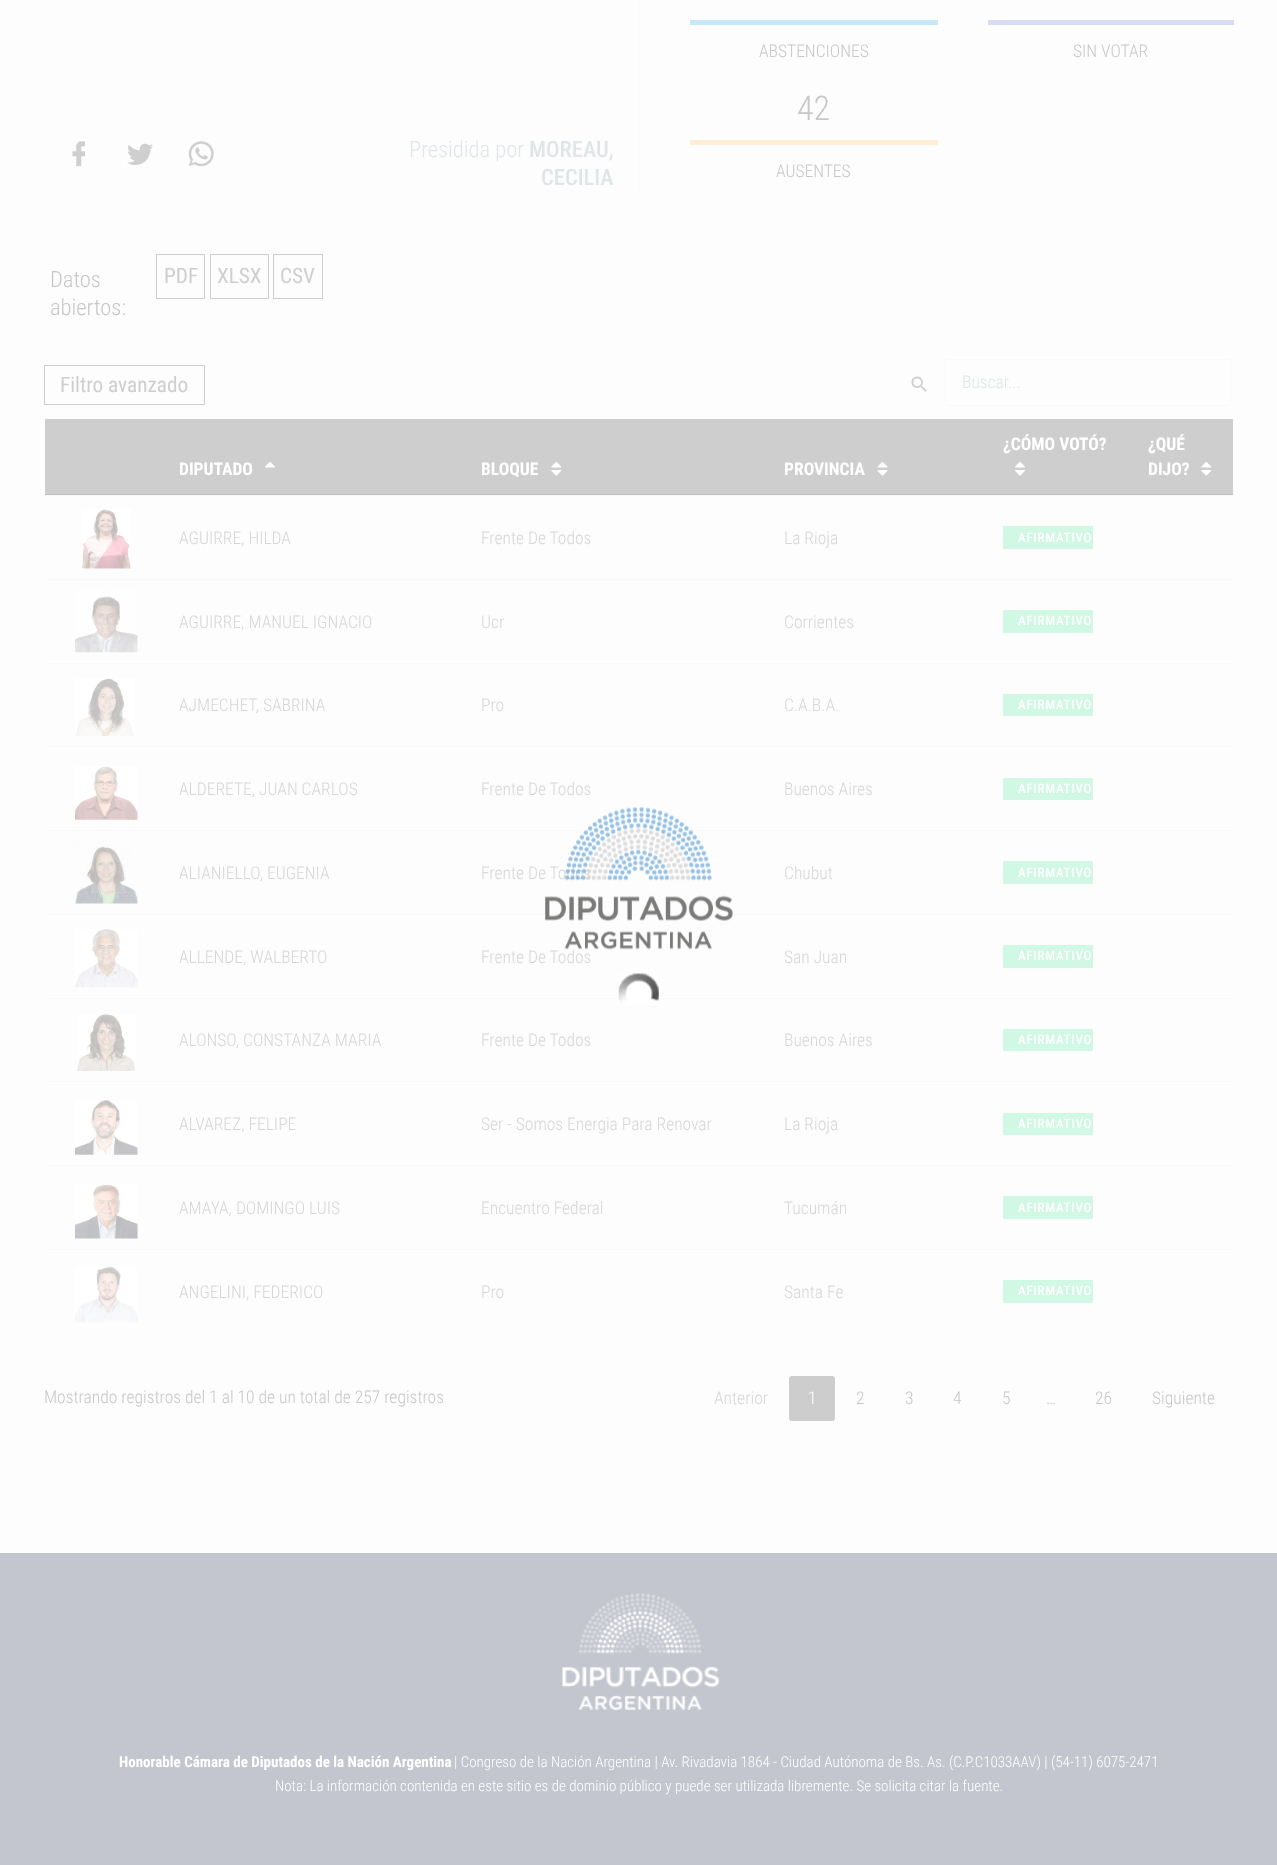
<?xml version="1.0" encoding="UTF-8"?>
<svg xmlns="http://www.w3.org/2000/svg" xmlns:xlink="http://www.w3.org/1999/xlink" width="1277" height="1865">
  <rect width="100%" height="100%" fill="#fdfdfd" />
  <image x="72" y="141" width="13" height="26" xlink:href="image1.png" />
  <image x="127" y="143" width="26" height="22" xlink:href="image2.png" />
  <image x="188" y="141" width="26" height="26" xlink:href="image3.png" />
  <rect x="639" width="1" height="198" fill="#fafbfb" />
  <rect x="690" y="20" width="248" height="5" fill="#c6e8f7" />
  <rect x="988" y="20" width="246" height="5" fill="#d8dcf3" />
  <rect x="690" y="140" width="248" height="5" fill="#ffefd8" />
  <rect x="156.5" y="254.5" width="48" height="44" fill="none" stroke="#cececf" />
  <rect x="210.5" y="254.5" width="58" height="44" fill="none" stroke="#cececf" />
  <rect x="273.5" y="254.5" width="49" height="44" fill="none" stroke="#cececf" />
  <rect x="44.5" y="365.5" width="160" height="39" fill="none" stroke="#cececf" />
  <image x="911" y="376" width="16" height="16" xlink:href="image4.png" />
  <rect x="945.5" y="359.5" width="285" height="46" fill="none" stroke="#f8f9f9" />
  <rect x="45" y="419" width="1188" height="75" fill="#cececf" />
  <image x="265" y="462" width="10" height="6" xlink:href="image5.png" />
  <image x="551" y="461" width="11" height="15" xlink:href="image6.png" />
  <image x="877" y="461" width="11" height="15" xlink:href="image7.png" />
  <image x="1015" y="462" width="10" height="14" xlink:href="image8.png" />
  <image x="1201" y="461" width="11" height="15" xlink:href="image6.png" />
  <rect x="45" y="494" width="1188" height="1" fill="#bfbfbf" />
  <rect x="45" y="495" width="1188" height="1" fill="#f8f9f9" />
  <image x="82" y="509" width="49" height="60" xlink:href="image9.png" />
  <rect x="1003" y="526" width="90" height="23" fill="#d1f8e5" />
  <rect x="45" y="579" width="1188" height="1" fill="#f8f9f9" />
  <image x="75" y="590" width="63" height="63" xlink:href="image10.png" />
  <rect x="1003" y="610" width="90" height="23" fill="#d1f8e5" />
  <rect x="45" y="663" width="1188" height="1" fill="#f8f9f9" />
  <image x="75" y="678" width="60" height="58" xlink:href="image11.png" />
  <rect x="1003" y="694" width="90" height="22" fill="#d1f8e5" />
  <rect x="45" y="746" width="1188" height="1" fill="#f8f9f9" />
  <image x="75" y="766" width="63" height="54" xlink:href="image12.png" />
  <rect x="1003" y="778" width="90" height="22" fill="#d1f8e5" />
  <rect x="45" y="830" width="1188" height="1" fill="#f8f9f9" />
  <image x="75" y="841" width="63" height="63" xlink:href="image13.png" />
  <rect x="1003" y="861" width="90" height="23" fill="#d1f8e5" />
  <rect x="45" y="914" width="1188" height="1" fill="#f8f9f9" />
  <image x="75" y="929" width="63" height="59" xlink:href="image14.png" />
  <rect x="1003" y="945" width="90" height="23" fill="#d1f8e5" />
  <rect x="45" y="998" width="1188" height="1" fill="#f8f9f9" />
  <image x="77" y="1014" width="59" height="57" xlink:href="image15.png" />
  <rect x="1003" y="1029" width="90" height="22" fill="#d1f8e5" />
  <rect x="45" y="1081" width="1188" height="1" fill="#f8f9f9" />
  <image x="75" y="1100" width="63" height="55" xlink:href="image16.png" />
  <rect x="1003" y="1113" width="90" height="22" fill="#d1f8e5" />
  <rect x="45" y="1165" width="1188" height="1" fill="#f8f9f9" />
  <image x="75" y="1184" width="63" height="55" xlink:href="image17.png" />
  <rect x="1003" y="1196" width="90" height="23" fill="#d1f8e5" />
  <rect x="45" y="1249" width="1188" height="1" fill="#f8f9f9" />
  <image x="75" y="1266" width="63" height="57" xlink:href="image18.png" />
  <rect x="1003" y="1280" width="90" height="23" fill="#d1f8e5" />
  <rect x="789.5" y="1376.5" width="45" height="44" rx="2" fill="#cdcdce" stroke="#cdcdce" />
  <rect y="1553" width="1277" height="312" fill="#c4c6cf" />
  <image x="562" y="1593" width="157" height="117" xlink:href="image19.png" />
  <image x="618" y="973" width="41" height="32" xlink:href="image21.png" />
  <text x="409" y="157" style="font-family: Roboto Condensed; font-size: 22.5px; font-weight: 300; fill: #e0e5e7">Presidida por</text>
  <text x="529" y="157" style="font-family: Roboto Condensed; font-size: 22.5px; font-weight: 500; fill: #e0e5e7">MOREAU,</text>
  <text x="541" y="185" style="font-family: Roboto Condensed; font-size: 22.5px; font-weight: 500; fill: #e0e5e7">CECILIA</text>
  <text x="759" y="57" style="font-family: Roboto Condensed; font-size: 17.5px; font-weight: 300; fill: #c7c7c7">ABSTENCIONES</text>
  <text x="1073" y="57" style="font-family: Roboto Condensed; font-size: 17.5px; font-weight: 300; fill: #c7c7c7">SIN VOTAR</text>
  <text x="797" y="120" style="font-family: Roboto Condensed; font-size: 34px; font-weight: 300; fill: #c7c7c7">42</text>
  <text x="776" y="177" style="font-family: Roboto Condensed; font-size: 17.5px; font-weight: 300; fill: #c7c7c7">AUSENTES</text>
  <text x="50" y="287" style="font-family: Roboto Condensed; font-size: 22.5px; font-weight: 300; fill: #c7c7c7">Datos</text>
  <text x="50" y="315" style="font-family: Roboto Condensed; font-size: 22.5px; font-weight: 300; fill: #c7c7c7">abiertos:</text>
  <text x="164" y="283" style="font-family: Roboto Condensed; font-size: 21.25px; fill: #cececf">PDF</text>
  <text x="217" y="283" style="font-family: Roboto Condensed; font-size: 21.25px; fill: #cececf">XLSX</text>
  <text x="280" y="283" style="font-family: Roboto Condensed; font-size: 21.25px; fill: #cececf">CSV</text>
  <text x="60" y="392" style="font-family: Roboto Condensed; font-size: 21.25px; fill: #cececf">Filtro avanzado</text>
  <text x="962" y="388" style="font-family: Roboto Condensed; font-size: 17.5px; font-weight: 300; fill: #e0e5e7">Buscar...</text>
  <text x="179" y="475" style="font-family: Roboto Condensed; font-size: 17.5px; font-weight: bold; fill: #ffffff">DIPUTADO</text>
  <text x="481" y="475" style="font-family: Roboto Condensed; font-size: 17.5px; font-weight: bold; fill: #ffffff">BLOQUE</text>
  <text x="784" y="475" style="font-family: Roboto Condensed; font-size: 17.5px; font-weight: bold; fill: #ffffff">PROVINCIA</text>
  <text x="1003" y="450" style="font-family: Roboto Condensed; font-size: 17.5px; font-weight: bold; fill: #ffffff">¿CÓMO VOTÓ?</text>
  <text x="1148" y="450" style="font-family: Roboto Condensed; font-size: 17.5px; font-weight: bold; fill: #ffffff">¿QUÉ</text>
  <text x="1148" y="475" style="font-family: Roboto Condensed; font-size: 17.5px; font-weight: bold; fill: #ffffff">DIJO?</text>
  <text x="179" y="544" style="font-family: Roboto Condensed; font-size: 17.5px; font-weight: 300; fill: #d6d6d6">AGUIRRE, HILDA</text>
  <text x="481" y="544" style="font-family: Roboto Condensed; font-size: 17.5px; font-weight: 300; fill: #d6d6d6">Frente De Todos</text>
  <text x="784" y="544" style="font-family: Roboto Condensed; font-size: 17.5px; font-weight: 300; fill: #d6d6d6">La Rioja</text>
  <text x="1018" y="542" style="font-family: Roboto Condensed; font-size: 13px; font-weight: 500; letter-spacing: 0.75px; fill: #ffffff">AFIRMATIVO</text>
  <text x="179" y="628" style="font-family: Roboto Condensed; font-size: 17.5px; font-weight: 300; fill: #d6d6d6">AGUIRRE, MANUEL IGNACIO</text>
  <text x="481" y="628" style="font-family: Roboto Condensed; font-size: 17.5px; font-weight: 300; fill: #d6d6d6">Ucr</text>
  <text x="784" y="628" style="font-family: Roboto Condensed; font-size: 17.5px; font-weight: 300; fill: #d6d6d6">Corrientes</text>
  <text x="1018" y="625" style="font-family: Roboto Condensed; font-size: 13px; font-weight: 500; letter-spacing: 0.75px; fill: #ffffff">AFIRMATIVO</text>
  <text x="179" y="711" style="font-family: Roboto Condensed; font-size: 17.5px; font-weight: 300; fill: #d6d6d6">AJMECHET, SABRINA</text>
  <text x="481" y="711" style="font-family: Roboto Condensed; font-size: 17.5px; font-weight: 300; fill: #d6d6d6">Pro</text>
  <text x="784" y="711" style="font-family: Roboto Condensed; font-size: 17.5px; font-weight: 300; fill: #d6d6d6">C.A.B.A.</text>
  <text x="1018" y="709" style="font-family: Roboto Condensed; font-size: 13px; font-weight: 500; letter-spacing: 0.75px; fill: #ffffff">AFIRMATIVO</text>
  <text x="179" y="795" style="font-family: Roboto Condensed; font-size: 17.5px; font-weight: 300; fill: #d6d6d6">ALDERETE, JUAN CARLOS</text>
  <text x="481" y="795" style="font-family: Roboto Condensed; font-size: 17.5px; font-weight: 300; fill: #d6d6d6">Frente De Todos</text>
  <text x="784" y="795" style="font-family: Roboto Condensed; font-size: 17.5px; font-weight: 300; fill: #d6d6d6">Buenos Aires</text>
  <text x="1018" y="793" style="font-family: Roboto Condensed; font-size: 13px; font-weight: 500; letter-spacing: 0.75px; fill: #ffffff">AFIRMATIVO</text>
  <text x="179" y="879" style="font-family: Roboto Condensed; font-size: 17.5px; font-weight: 300; fill: #d6d6d6">ALIANIELLO, EUGENIA</text>
  <text x="481" y="879" style="font-family: Roboto Condensed; font-size: 17.5px; font-weight: 300; fill: #d6d6d6">Frente De Todos</text>
  <text x="784" y="879" style="font-family: Roboto Condensed; font-size: 17.5px; font-weight: 300; fill: #d6d6d6">Chubut</text>
  <text x="1018" y="877" style="font-family: Roboto Condensed; font-size: 13px; font-weight: 500; letter-spacing: 0.75px; fill: #ffffff">AFIRMATIVO</text>
  <text x="179" y="963" style="font-family: Roboto Condensed; font-size: 17.5px; font-weight: 300; fill: #d6d6d6">ALLENDE, WALBERTO</text>
  <text x="481" y="963" style="font-family: Roboto Condensed; font-size: 17.5px; font-weight: 300; fill: #d6d6d6">Frente De Todos</text>
  <text x="784" y="963" style="font-family: Roboto Condensed; font-size: 17.5px; font-weight: 300; fill: #d6d6d6">San Juan</text>
  <text x="1018" y="960" style="font-family: Roboto Condensed; font-size: 13px; font-weight: 500; letter-spacing: 0.75px; fill: #ffffff">AFIRMATIVO</text>
  <text x="179" y="1046" style="font-family: Roboto Condensed; font-size: 17.5px; font-weight: 300; fill: #d6d6d6">ALONSO, CONSTANZA MARIA</text>
  <text x="481" y="1046" style="font-family: Roboto Condensed; font-size: 17.5px; font-weight: 300; fill: #d6d6d6">Frente De Todos</text>
  <text x="784" y="1046" style="font-family: Roboto Condensed; font-size: 17.5px; font-weight: 300; fill: #d6d6d6">Buenos Aires</text>
  <text x="1018" y="1044" style="font-family: Roboto Condensed; font-size: 13px; font-weight: 500; letter-spacing: 0.75px; fill: #ffffff">AFIRMATIVO</text>
  <text x="179" y="1130" style="font-family: Roboto Condensed; font-size: 17.5px; font-weight: 300; fill: #d6d6d6">ALVAREZ, FELIPE</text>
  <text x="481" y="1130" style="font-family: Roboto Condensed; font-size: 17.5px; font-weight: 300; fill: #d6d6d6">Ser - Somos Energia Para Renovar</text>
  <text x="784" y="1130" style="font-family: Roboto Condensed; font-size: 17.5px; font-weight: 300; fill: #d6d6d6">La Rioja</text>
  <text x="1018" y="1128" style="font-family: Roboto Condensed; font-size: 13px; font-weight: 500; letter-spacing: 0.75px; fill: #ffffff">AFIRMATIVO</text>
  <text x="179" y="1214" style="font-family: Roboto Condensed; font-size: 17.5px; font-weight: 300; fill: #d6d6d6">AMAYA, DOMINGO LUIS</text>
  <text x="481" y="1214" style="font-family: Roboto Condensed; font-size: 17.5px; font-weight: 300; fill: #d6d6d6">Encuentro Federal</text>
  <text x="784" y="1214" style="font-family: Roboto Condensed; font-size: 17.5px; font-weight: 300; fill: #d6d6d6">Tucumán</text>
  <text x="1018" y="1212" style="font-family: Roboto Condensed; font-size: 13px; font-weight: 500; letter-spacing: 0.75px; fill: #ffffff">AFIRMATIVO</text>
  <text x="179" y="1298" style="font-family: Roboto Condensed; font-size: 17.5px; font-weight: 300; fill: #d6d6d6">ANGELINI, FEDERICO</text>
  <text x="481" y="1298" style="font-family: Roboto Condensed; font-size: 17.5px; font-weight: 300; fill: #d6d6d6">Pro</text>
  <text x="784" y="1298" style="font-family: Roboto Condensed; font-size: 17.5px; font-weight: 300; fill: #d6d6d6">Santa Fe</text>
  <text x="1018" y="1295" style="font-family: Roboto Condensed; font-size: 13px; font-weight: 500; letter-spacing: 0.75px; fill: #ffffff">AFIRMATIVO</text>
  <text x="44" y="1403" style="font-family: Roboto Condensed; font-size: 17.5px; font-weight: 300; fill: #c7c7c7">Mostrando registros del 1 al 10 de un total de 257 registros</text>
  <text x="714" y="1404" style="font-family: Roboto Condensed; font-size: 17.5px; font-weight: 300; fill: #d6d6d6">Anterior</text>
  <text x="808" y="1404" style="font-family: Roboto Condensed; font-size: 17.5px; font-weight: 300; fill: #ffffff">1</text>
  <text x="856" y="1404" style="font-family: Roboto Condensed; font-size: 17.5px; font-weight: 300; fill: #c7c7c7">2</text>
  <text x="905" y="1404" style="font-family: Roboto Condensed; font-size: 17.5px; font-weight: 300; fill: #c7c7c7">3</text>
  <text x="953" y="1404" style="font-family: Roboto Condensed; font-size: 17.5px; font-weight: 300; fill: #c7c7c7">4</text>
  <text x="1002" y="1404" style="font-family: Roboto Condensed; font-size: 17.5px; font-weight: 300; fill: #c7c7c7">5</text>
  <text x="1046" y="1404" style="font-family: Roboto Condensed; font-size: 17.5px; font-weight: 300; fill: #c7c7c7">…</text>
  <text x="1095" y="1404" style="font-family: Roboto Condensed; font-size: 17.5px; font-weight: 300; fill: #c7c7c7">26</text>
  <text x="1152" y="1404" style="font-family: Roboto Condensed; font-size: 17.5px; font-weight: 300; fill: #c7c7c7">Siguiente</text>
  <text x="119" y="1767" style="font-family: Roboto Condensed; font-size: 15px; font-weight: bold; fill: #ffffff">Honorable Cámara de Diputados de la Nación Argentina</text>
  <text x="454" y="1767" style="font-family: Roboto Condensed; font-size: 15px; font-weight: 300; fill: #ffffff">| Congreso de la Nación Argentina | Av. Rivadavia 1864 - Ciudad Autónoma de Bs. As. (C.P.C1033AAV) | (54-11) 6075-2471</text>
  <text x="275" y="1791" style="font-family: Roboto Condensed; font-size: 15px; font-weight: 300; fill: #ffffff">Nota: La información contenida en este sitio es de dominio público y puede ser utilizada libremente. Se solicita citar la fuente.</text>
  <image x="545" y="807" width="188" height="143" xlink:href="image20.png" />
</svg>
